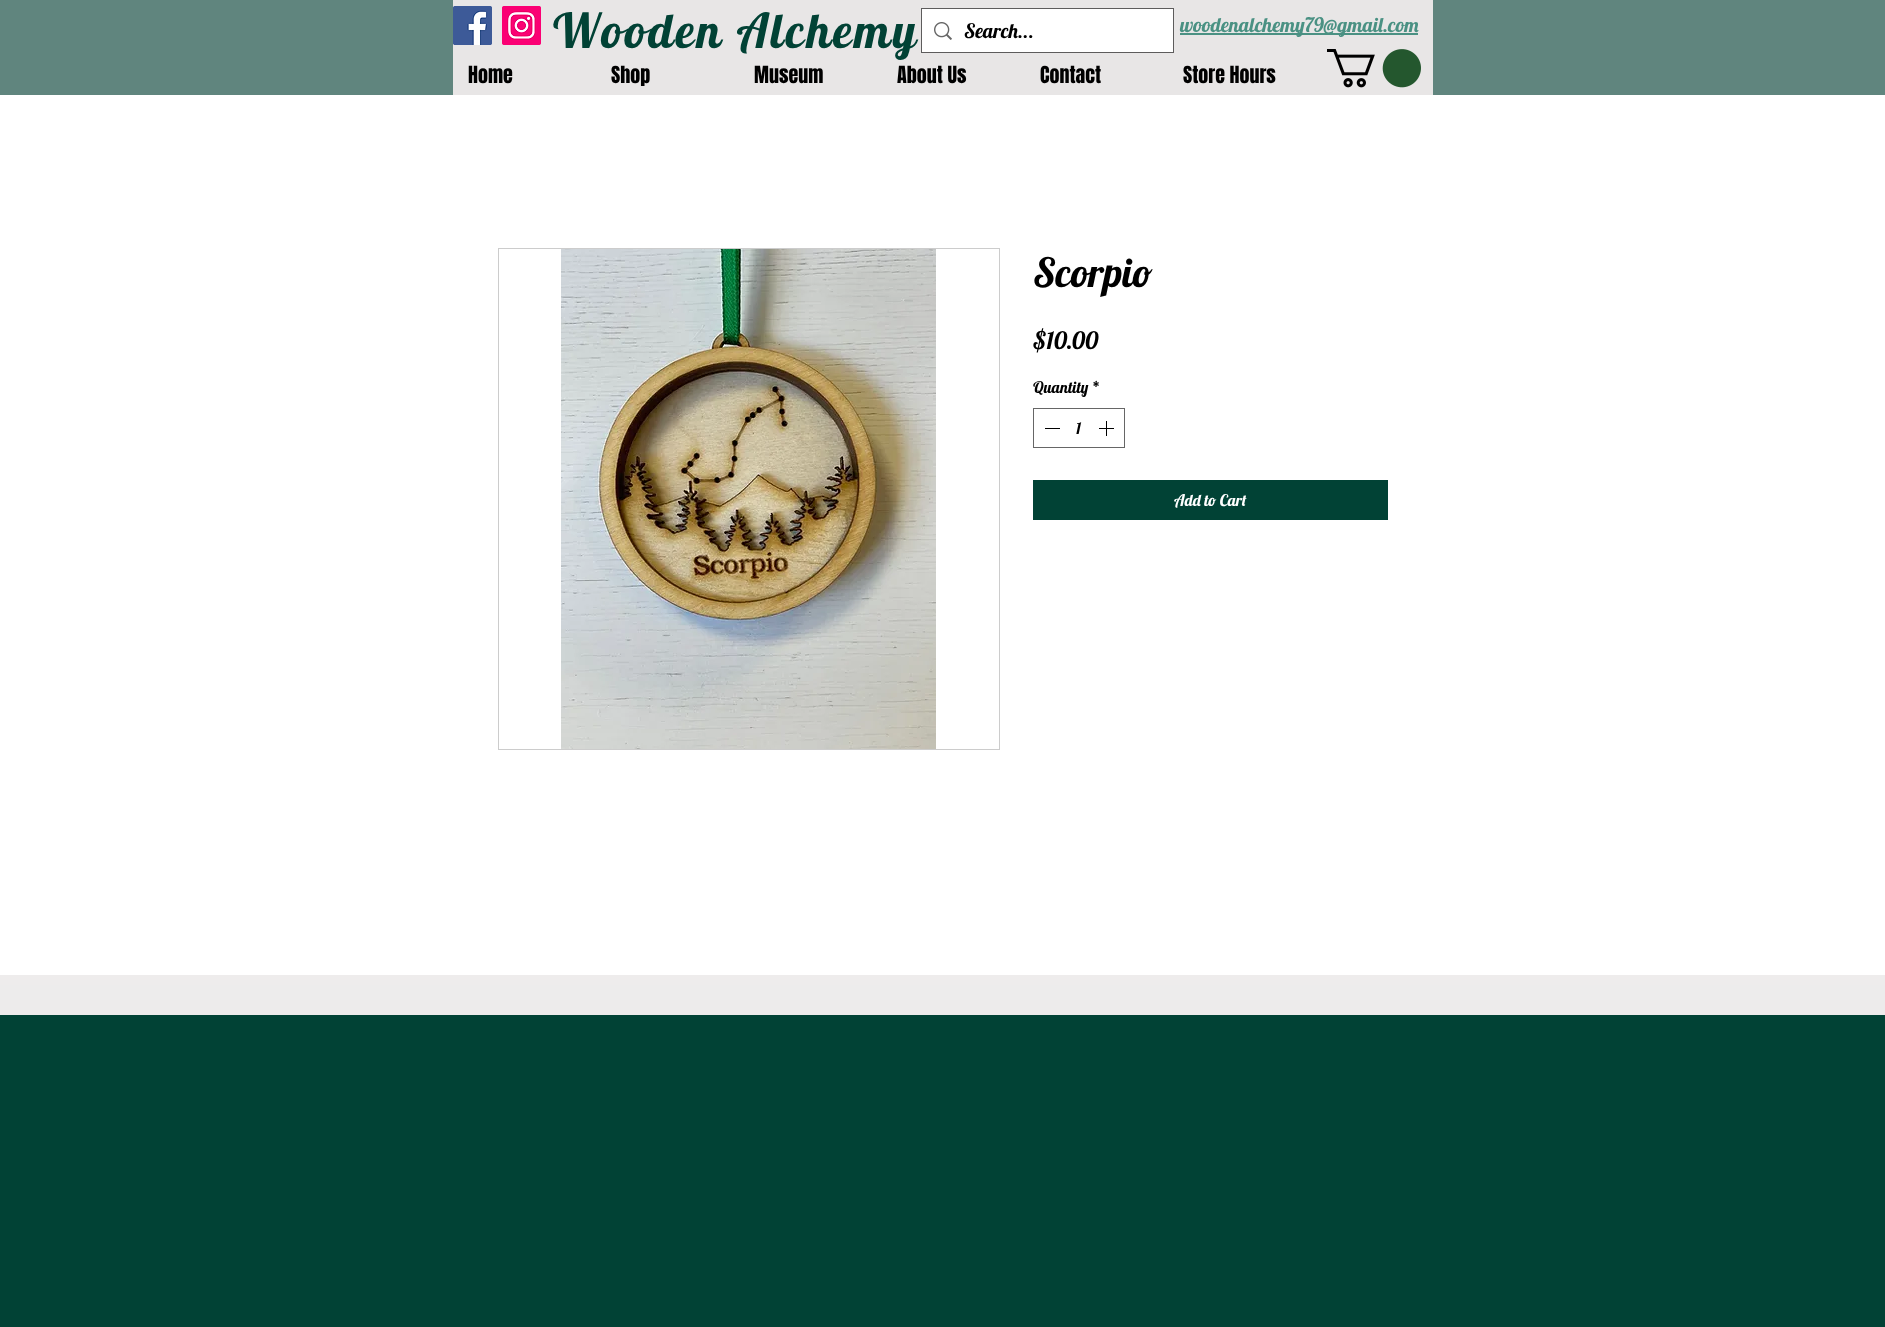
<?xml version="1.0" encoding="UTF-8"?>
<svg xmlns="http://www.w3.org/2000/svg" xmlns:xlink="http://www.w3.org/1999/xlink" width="1885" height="1327">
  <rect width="100%" height="100%" fill="#014235" />
  <rect width="1885" height="95" fill="#60857e" />
  <rect x="453" width="980" height="95" fill="#e8e6e6" />
  <image x="453" y="6" width="39" height="39" xlink:href="image1.png" />
  <image x="502" y="6" width="39" height="39" xlink:href="image2.png" />
  <rect x="921.5" y="8.5" width="252" height="44" fill="none" stroke="#5d5c5c" />
  <rect x="922" y="9" width="251" height="43" fill="#ffffff" />
  <image x="934" y="22" width="18" height="18" xlink:href="image3.png" />
  <rect x="1180" y="33" width="238" height="2" fill="#4a9183" />
  <image x="1327" y="49" width="94" height="39" xlink:href="image4.png" />
  <rect y="95" width="1885" height="880" fill="#ffffff" />
  <rect x="498.5" y="248.5" width="501" height="501" fill="none" stroke="#cccccc" />
  <image x="561" y="249" width="375" height="500" xlink:href="image5.png" />
  <rect x="1033.5" y="408.5" width="91" height="39" fill="none" stroke="#666666" />
  <rect x="1045" y="428" width="15" height="1" fill="#000000" />
  <image x="1099" y="421" width="15" height="15" xlink:href="image6.png" />
  <rect x="1033" y="480" width="355" height="40" fill="#014235" />
  <rect y="975" width="1885" height="40" fill="#e8e6e6" />
  <image x="0" y="975" width="1885" height="40" xlink:href="image7.png" />
  <text x="553" y="48" style="font-family: Lobster; font-size: 48px; letter-spacing: 2.4px; fill: #014235">Wooden Alchemy</text>
  <text x="964" y="38" style="font-family: Lobster; font-size: 20px; fill: #000000">Search...</text>
  <text x="1180" y="32" style="font-family: Lobster; font-size: 20px; fill: #4a9183">woodenalchemy79@gmail.com</text>
  <text x="468" y="83" style="font-family: Anton; font-size: 20px; fill: #000000">Home</text>
  <text x="611" y="83" style="font-family: Anton; font-size: 20px; fill: #000000">Shop</text>
  <text x="754" y="83" style="font-family: Anton; font-size: 20px; fill: #000000">Museum</text>
  <text x="897" y="83" style="font-family: Anton; font-size: 20px; fill: #000000">About Us</text>
  <text x="1040" y="83" style="font-family: Anton; font-size: 20px; fill: #000000">Contact</text>
  <text x="1183" y="83" style="font-family: Anton; font-size: 20px; fill: #000000">Store Hours</text>
  <text x="1033" y="287" style="font-family: Lobster; font-size: 40px; fill: #000000">Scorpio</text>
  <text x="1033" y="349" style="font-family: Lobster; font-size: 24px; fill: #000000">$10.00</text>
  <text x="1033" y="393" style="font-family: Lobster; font-size: 16px; fill: #000000">Quantity</text>
  <text x="1092" y="393" style="font-family: Lobster; font-size: 16px; fill: #000000">*</text>
  <text x="1076" y="434" style="font-family: Lobster; font-size: 16px; fill: #000000">1</text>
  <text x="1174" y="506" style="font-family: Lobster; font-size: 16px; fill: #ffffff">Add to Cart</text>
</svg>
